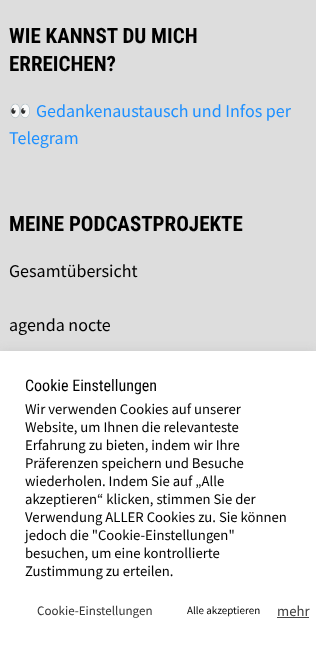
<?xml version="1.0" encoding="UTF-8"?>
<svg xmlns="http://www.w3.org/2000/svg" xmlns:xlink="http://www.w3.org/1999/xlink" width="316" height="656">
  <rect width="100%" height="100%" fill="#dddddd" />
  <rect y="350" width="316" height="305" fill="#acabab" fill-opacity="0.3" filter="blur(5px)" />
  <rect y="351" width="316" height="305" fill="#ffffff" />
  <rect x="277" y="617" width="32" height="1" fill="#444444" />
  <text x="9" y="43" style="font-family: Roboto Condensed; font-size: 21px; font-weight: bold; fill: #000000">WIE KANNST DU MICH</text>
  <text x="9" y="71" style="font-family: Roboto Condensed; font-size: 21px; font-weight: bold; fill: #000000">ERREICHEN?</text>
  <text x="9" y="117" style="font-family: Noto Color Emoji; font-size: 18px; fill: #404040">👀</text>
  <text x="36" y="117" style="font-family: Source Sans Pro; font-size: 18px; fill: #1e90ff">Gedankenaustausch und Infos per</text>
  <text x="9" y="144" style="font-family: Source Sans Pro; font-size: 18px; fill: #1e90ff">Telegram</text>
  <text x="9" y="231" style="font-family: Roboto Condensed; font-size: 21px; font-weight: bold; fill: #000000">MEINE PODCASTPROJEKTE</text>
  <text x="9" y="277" style="font-family: Source Sans Pro; font-size: 18px; fill: #000000">Gesamtübersicht</text>
  <text x="9" y="331" style="font-family: Source Sans Pro; font-size: 18px; fill: #000000">agenda nocte</text>
  <text x="25" y="391" style="font-family: Roboto Condensed; font-size: 16px; fill: #000000">Cookie Einstellungen</text>
  <text x="25" y="414" style="font-family: Source Sans Pro; font-size: 14.7px; fill: #000000">Wir verwenden Cookies auf unserer</text>
  <text x="25" y="432" style="font-family: Source Sans Pro; font-size: 14.7px; fill: #000000">Website, um Ihnen die relevanteste</text>
  <text x="25" y="450" style="font-family: Source Sans Pro; font-size: 14.7px; fill: #000000">Erfahrung zu bieten, indem wir Ihre</text>
  <text x="25" y="468" style="font-family: Source Sans Pro; font-size: 14.7px; fill: #000000">Präferenzen speichern und Besuche</text>
  <text x="25" y="486" style="font-family: Source Sans Pro; font-size: 14.7px; fill: #000000">wiederholen. Indem Sie auf „Alle</text>
  <text x="25" y="504" style="font-family: Source Sans Pro; font-size: 14.7px; fill: #000000">akzeptieren“ klicken, stimmen Sie der</text>
  <text x="25" y="522" style="font-family: Source Sans Pro; font-size: 14.7px; fill: #000000">Verwendung ALLER Cookies zu. Sie können</text>
  <text x="25" y="540" style="font-family: Source Sans Pro; font-size: 14.7px; fill: #000000">jedoch die "Cookie-Einstellungen"</text>
  <text x="25" y="558" style="font-family: Source Sans Pro; font-size: 14.7px; fill: #000000">besuchen, um eine kontrollierte</text>
  <text x="25" y="576" style="font-family: Source Sans Pro; font-size: 14.7px; fill: #000000">Zustimmung zu erteilen.</text>
  <text x="37" y="615" style="font-family: Source Sans Pro; font-size: 13px; fill: #333333">Cookie-Einstellungen</text>
  <text x="187" y="614" style="font-family: Source Sans Pro; font-size: 11px; fill: #000000">Alle akzeptieren</text>
  <text x="277" y="616" style="font-family: Source Sans Pro; font-size: 14.7px; fill: #404040">mehr</text>
</svg>
